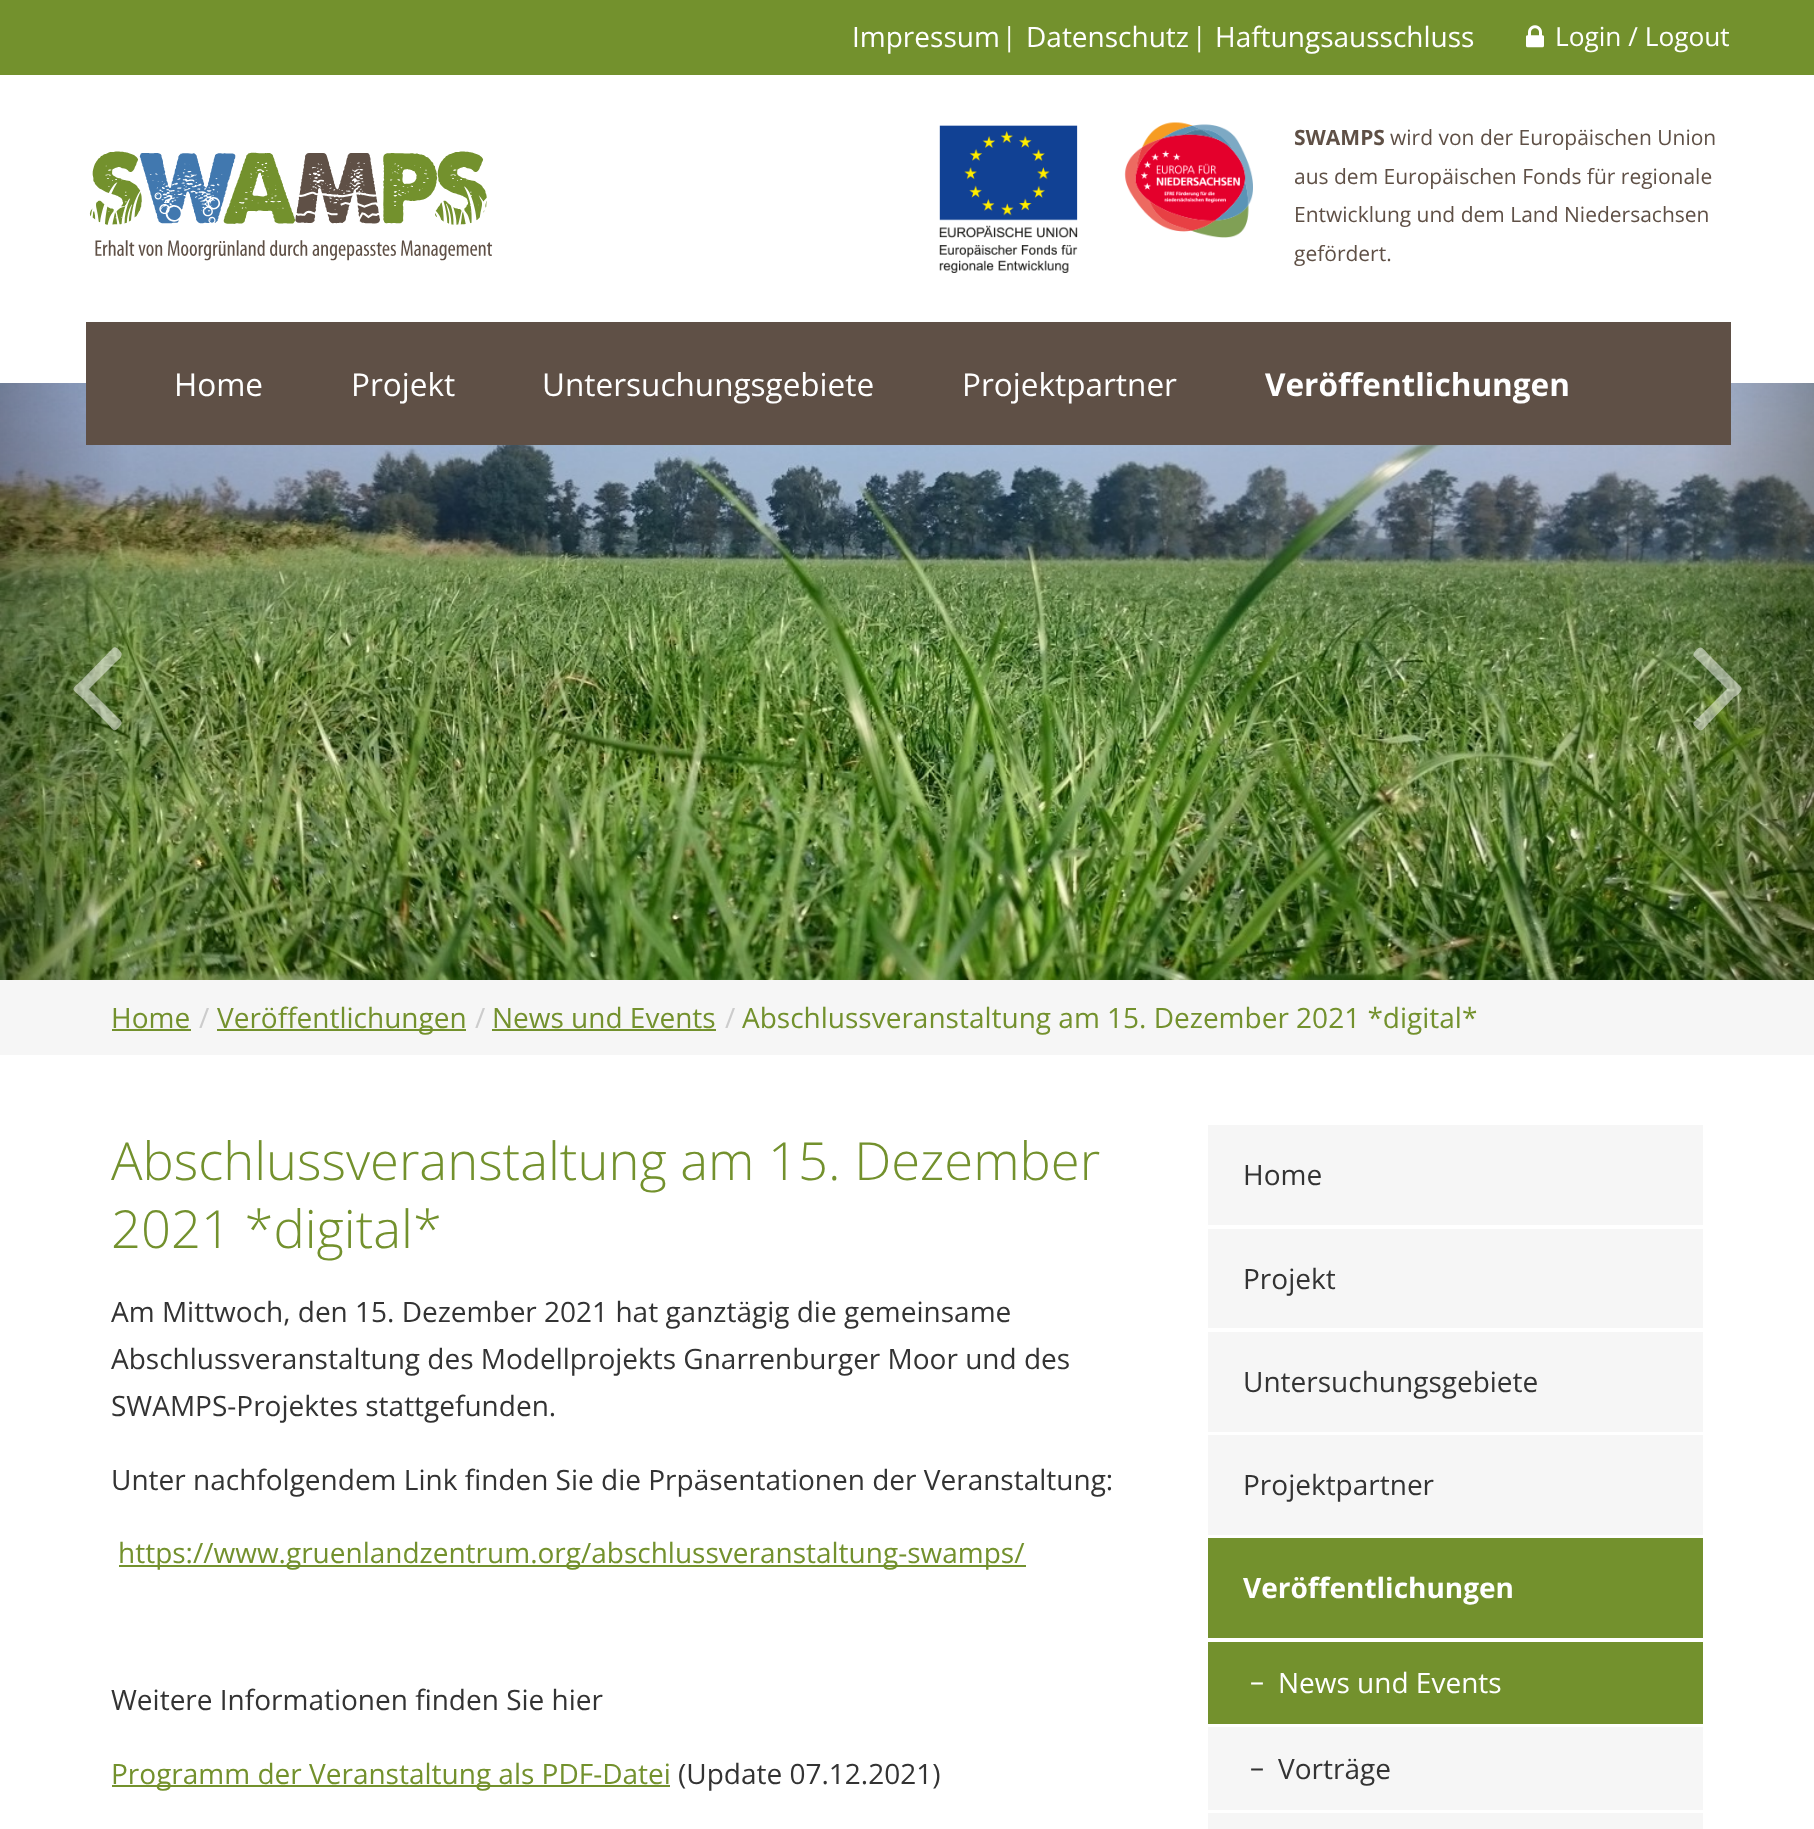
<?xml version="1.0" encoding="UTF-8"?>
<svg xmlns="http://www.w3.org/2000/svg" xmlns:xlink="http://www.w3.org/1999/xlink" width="1814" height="1829">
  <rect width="100%" height="100%" fill="#ffffff" />
  <rect width="1814" height="75" fill="#73912d" />
  <image x="1526" y="25" width="18" height="23" xlink:href="image1.png" />
  <image x="89" y="151" width="404" height="110" xlink:href="image2.png" />
  <image x="939" y="122" width="314" height="151" xlink:href="image3.png" />
  <image x="0" y="383" width="1814" height="597" xlink:href="image4.png" />
  <rect x="86" y="322" width="1645" height="123" fill="#5f5046" />
  <path d="M 121 652 c 3 4 -4 9 -5 10 l -27 27 l 27 27 c 4 4 8 6 4 10 c -6 7 -6 5 -13 -3 l -26 -26 c -10 -9 -10 -7 0 -16 l 32 -33 c 3 -3 7 3 8 4 z" fill="#ffffff" fill-opacity="0.5" />
  <path d="M 1741 687 c 3 4 -6 10 -7 10 l -25 26 c -1 0 -7 10 -10 7 c -2 -2 -8 -6 -5 -8 l 33 -33 l -27 -27 c -6 -6 -9 -6 -4 -12 c 6 -5 6 -2 13 5 z" fill="#ffffff" fill-opacity="0.5" />
  <rect y="980" width="1814" height="75" fill="#f6f6f6" />
  <rect x="112" y="1029" width="79" height="2" fill="#73912d" />
  <rect x="217" y="1029" width="249" height="2" fill="#73912d" />
  <rect x="492" y="1029" width="224" height="2" fill="#73912d" />
  <rect x="119" y="1565" width="907" height="2" fill="#73912d" />
  <rect x="112" y="1785" width="558" height="2" fill="#73912d" />
  <rect x="1208" y="1125" width="495" height="100" fill="#f6f6f6" />
  <rect x="1208" y="1229" width="495" height="99" fill="#f6f6f6" />
  <rect x="1208" y="1332" width="495" height="100" fill="#f6f6f6" />
  <rect x="1208" y="1435" width="495" height="100" fill="#f6f6f6" />
  <rect x="1208" y="1538" width="495" height="100" fill="#73912d" />
  <rect x="1208" y="1642" width="495" height="82" fill="#73912d" />
  <rect x="1208" y="1727" width="495" height="83" fill="#f6f6f6" />
  <rect x="1208" y="1813" width="495" height="16" fill="#f6f6f6" />
  <text x="852" y="47" style="font-family: Open Sans; font-size: 28px; fill: #ffffff">Impressum</text>
  <text x="1002" y="46" style="font-family: Open Sans; font-size: 26.25px; fill: #ffffff">|</text>
  <text x="1026" y="47" style="font-family: Open Sans; font-size: 28px; fill: #ffffff">Datenschutz</text>
  <text x="1192" y="46" style="font-family: Open Sans; font-size: 26.25px; fill: #ffffff">|</text>
  <text x="1215" y="47" style="font-family: Open Sans; font-size: 28px; fill: #ffffff">Haftungsausschluss</text>
  <text x="1555" y="46" style="font-family: Open Sans; font-size: 26.25px; fill: #ffffff">Login / Logout</text>
  <text x="1294" y="145" style="font-family: Open Sans; font-size: 21px; font-weight: bold; fill: #5f5046">SWAMPS</text>
  <text x="1390" y="145" style="font-family: Open Sans; font-size: 21px; fill: #5f5046">wird von der Europäischen Union</text>
  <text x="1294" y="184" style="font-family: Open Sans; font-size: 21px; fill: #5f5046">aus dem Europäischen Fonds für regionale</text>
  <text x="1294" y="222" style="font-family: Open Sans; font-size: 21px; fill: #5f5046">Entwicklung und dem Land Niedersachsen</text>
  <text x="1294" y="261" style="font-family: Open Sans; font-size: 21px; fill: #5f5046">gefördert.</text>
  <text x="174" y="396" style="font-family: Open Sans; font-size: 31.5px; fill: #ffffff">Home</text>
  <text x="351" y="396" style="font-family: Open Sans; font-size: 31.5px; fill: #ffffff">Projekt</text>
  <text x="542" y="396" style="font-family: Open Sans; font-size: 31.5px; fill: #ffffff">Untersuchungsgebiete</text>
  <text x="962" y="396" style="font-family: Open Sans; font-size: 31.5px; fill: #ffffff">Projektpartner</text>
  <text x="1265" y="396" style="font-family: Open Sans; font-size: 31.5px; font-weight: bold; fill: #ffffff">Veröffentlichungen</text>
  <text x="111" y="1028" style="font-family: Open Sans; font-size: 28px; fill: #73912d">Home</text>
  <text x="199" y="1028" style="font-family: Open Sans; font-size: 28px; fill: #cccccc">/</text>
  <text x="217" y="1028" style="font-family: Open Sans; font-size: 28px; fill: #73912d">Veröffentlichungen</text>
  <text x="475" y="1028" style="font-family: Open Sans; font-size: 28px; fill: #cccccc">/</text>
  <text x="492" y="1028" style="font-family: Open Sans; font-size: 28px; fill: #73912d">News und Events</text>
  <text x="725" y="1028" style="font-family: Open Sans; font-size: 28px; fill: #cccccc">/</text>
  <text x="742" y="1028" style="font-family: Open Sans; font-size: 28px; fill: #73912d">Abschlussveranstaltung am 15. Dezember 2021 *digital*</text>
  <text x="111" y="1180" style="font-family: Open Sans; font-size: 52.5px; font-weight: 300; fill: #73912d">Abschlussveranstaltung am 15. Dezember</text>
  <text x="111" y="1248" style="font-family: Open Sans; font-size: 52.5px; font-weight: 300; fill: #73912d">2021 *digital*</text>
  <text x="111" y="1322" style="font-family: Open Sans; font-size: 28px; fill: #333333">Am Mittwoch, den 15. Dezember 2021 hat ganztägig die gemeinsame</text>
  <text x="111" y="1369" style="font-family: Open Sans; font-size: 28px; fill: #333333">Abschlussveranstaltung des Modellprojekts Gnarrenburger Moor und des</text>
  <text x="111" y="1416" style="font-family: Open Sans; font-size: 28px; fill: #333333">SWAMPS-Projektes stattgefunden.</text>
  <text x="111" y="1490" style="font-family: Open Sans; font-size: 28px; fill: #333333">Unter nachfolgendem Link finden Sie die Prpäsentationen der Veranstaltung:</text>
  <text x="118" y="1563" style="font-family: Open Sans; font-size: 28px; fill: #73912d">https://www.gruenlandzentrum.org/abschlussveranstaltung-swamps/</text>
  <text x="111" y="1710" style="font-family: Open Sans; font-size: 28px; fill: #333333">Weitere Informationen finden Sie hier</text>
  <text x="111" y="1784" style="font-family: Open Sans; font-size: 28px; fill: #73912d">Programm der Veranstaltung als PDF-Datei</text>
  <text x="678" y="1784" style="font-family: Open Sans; font-size: 28px; fill: #333333">(Update 07.12.2021)</text>
  <text x="1243" y="1185" style="font-family: Open Sans; font-size: 28px; fill: #333333">Home</text>
  <text x="1243" y="1289" style="font-family: Open Sans; font-size: 28px; fill: #333333">Projekt</text>
  <text x="1243" y="1392" style="font-family: Open Sans; font-size: 28px; fill: #333333">Untersuchungsgebiete</text>
  <text x="1243" y="1495" style="font-family: Open Sans; font-size: 28px; fill: #333333">Projektpartner</text>
  <text x="1243" y="1598" style="font-family: Open Sans; font-size: 28px; font-weight: bold; fill: #ffffff">Veröffentlichungen</text>
  <text x="1250" y="1691" style="font-family: Open Sans; font-size: 28px; letter-spacing: -4px; fill: #ffffff">–</text>
  <text x="1278" y="1693" style="font-family: Open Sans; font-size: 28px; fill: #ffffff">News und Events</text>
  <text x="1250" y="1777" style="font-family: Open Sans; font-size: 28px; letter-spacing: -4px; fill: #333333">–</text>
  <text x="1278" y="1779" style="font-family: Open Sans; font-size: 28px; fill: #333333">Vorträge</text>
</svg>
